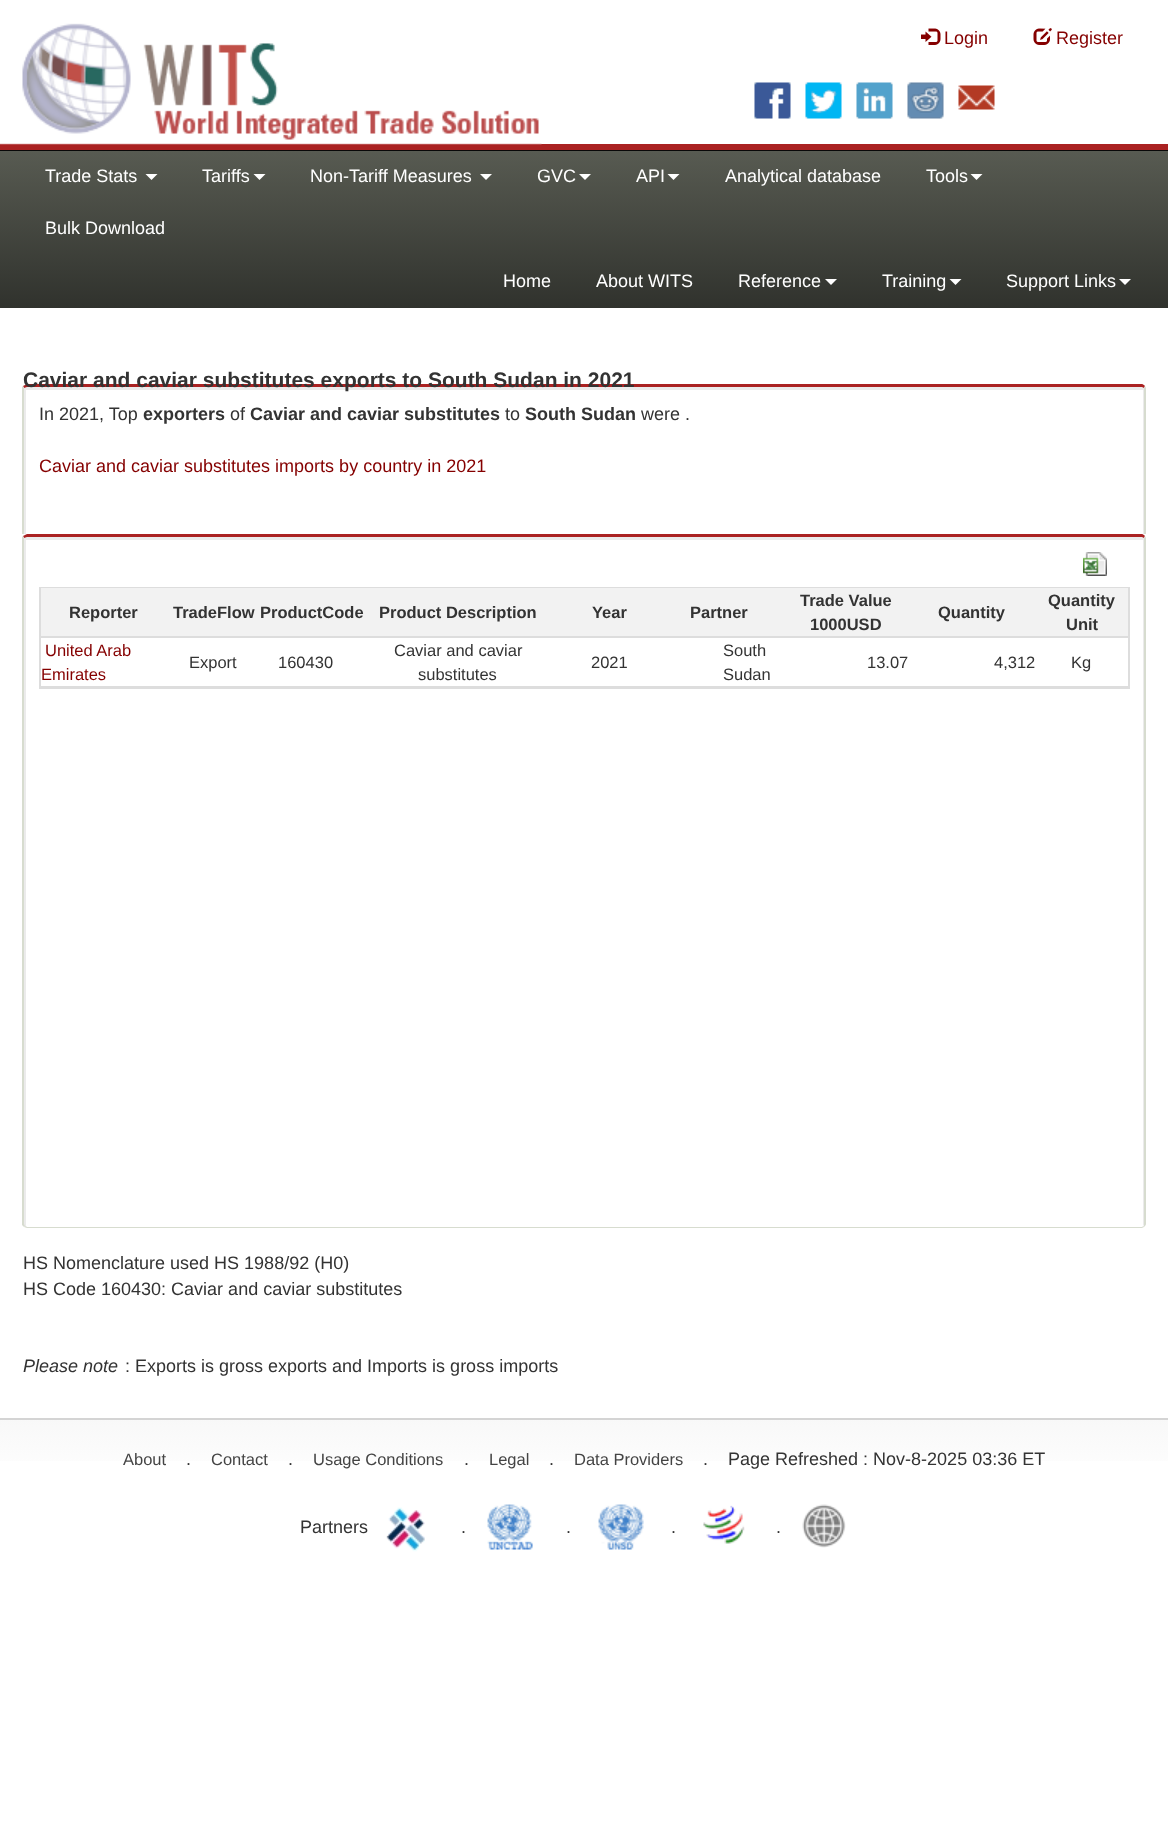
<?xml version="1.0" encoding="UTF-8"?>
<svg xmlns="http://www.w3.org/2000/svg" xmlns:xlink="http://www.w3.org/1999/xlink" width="1168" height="1831">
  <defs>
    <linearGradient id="g1" gradientUnits="userSpaceOnUse" x1="584" y1="150" x2="584" y2="308"><stop offset="0" stop-color="#585b52" /><stop offset="1" stop-color="#30322d" /></linearGradient>
    <linearGradient id="g2" gradientUnits="userSpaceOnUse" x1="584" y1="1419" x2="584" y2="1485"><stop offset="0" stop-color="#f8f8f8" /><stop offset="1" stop-color="#ffffff" /></linearGradient>
  </defs>
  <rect width="100%" height="100%" fill="#ffffff" />
  <rect y="150" width="1168" height="1" fill="#080808" />
  <rect y="144" width="1168" height="6" fill="#aa2222" />
  <image x="0" y="23" width="542" height="122" xlink:href="image1.png" />
  <image x="921" y="28" width="20" height="17" xlink:href="image2.png" />
  <image x="1033" y="28" width="19" height="17" xlink:href="image3.png" />
  <image x="754" y="82" width="37" height="37" xlink:href="image4.png" />
  <image x="805" y="82" width="37" height="37" xlink:href="image5.png" />
  <image x="856" y="82" width="37" height="37" xlink:href="image6.png" />
  <image x="907" y="82" width="37" height="37" xlink:href="image7.png" />
  <image x="958" y="85" width="37" height="25" xlink:href="image8.png" />
  <rect y="151" width="1168" height="157" fill="url(#g1)" />
  <path d="M 145.5 174 h 12 l -6 6 z" fill="#ffffff" />
  <path d="M 253.5 174 h 12 l -6 6 z" fill="#ffffff" />
  <path d="M 480 174 h 12 l -6 6 z" fill="#ffffff" />
  <path d="M 579 174 h 12 l -6 6 z" fill="#ffffff" />
  <path d="M 667.5 174 h 12 l -6 6 z" fill="#ffffff" />
  <path d="M 970.5 174 h 12 l -6 6 z" fill="#ffffff" />
  <path d="M 825 279 h 12 l -6 6 z" fill="#ffffff" />
  <path d="M 949.5 279 h 12 l -6 6 z" fill="#ffffff" />
  <path d="M 1119 279 h 12 l -6 6 z" fill="#ffffff" />
  <path d="M 27 387 c -2 0 -3 1 -3 1 v 216 c 0 2 1 3 2 3 v -217 h 1117 v 216 v 1 c 1 0 1 -1 1 -3 v -216 c 0 0 -1 -1 -2 -1 z" fill="#ebebeb" />
  <path d="M 27 384 l -4 2 l 1 2 l 3 -1 h 1115 l 2 1 l 1 -2 c -1 -1 -2 -2 -3 -2 z" fill="#aa2222" />
  <path d="M 1146 604 v -216 l -1 -2 l -1 2 v 216 l -1 2 l 2 2 c 0 -1 1 -2 1 -4 z" fill="#d7dccf" />
  <path d="M 22 387 l 1 -1 l 1 2 v 216 l 1 3 l -1 1 l -2 -2 z" fill="#d7dccf" />
  <rect x="22" y="534" width="1124" height="74" fill="#ffffff" />
  <path d="M 27 537 c -2 0 -3 1 -3 1 v 686 c 0 2 1 3 3 3 l -1 -1 v -686 h 1117 v 686 l -1 1 c 1 0 2 -2 2 -3 v -686 c 0 0 -1 -1 -2 -1 z" fill="#ebebeb" />
  <path d="M 27 534 l -4 2 l 1 2 l 3 -1 h 1115 l 2 1 l 1 -2 c -1 -1 -2 -2 -3 -2 z" fill="#aa2222" />
  <path d="M 1146 1224 v -686 l -1 -2 l -1 2 v 686 v 2 v 1 c 1 -1 2 -2 2 -3 z" fill="#d7dccf" />
  <path d="M 1144 1227 l -2 1 h -1115 l -3 -1 l 1 -1 l 2 1 h 1115 l 2 -1 z" fill="#d7dccf" />
  <path d="M 22 537 l 1 -1 l 1 2 v 686 l 1 2 l -1 1 l -2 -2 z" fill="#d7dccf" />
  <image x="1083" y="552" width="24" height="24" xlink:href="image9.png" />
  <rect x="40" y="588" width="1089" height="100" fill="none" stroke="#dddddd" stroke-width="2" />
  <rect x="41" y="588" width="1087" height="48" fill="#f2f2f2" />
  <rect x="41" y="636" width="1087" height="2" fill="#dddddd" />
  <rect x="41" y="686" width="1087" height="1" fill="#dddddd" />
  <rect y="1420" width="1168" height="41" fill="url(#g2)" />
  <rect y="1418" width="1168" height="2" fill="#d4d4d4" />
  <image x="386" y="1507" width="39" height="45" xlink:href="image10.png" />
  <image x="487" y="1504" width="46" height="46" xlink:href="image11.png" />
  <image x="598" y="1504" width="46" height="46" xlink:href="image12.png" />
  <image x="703" y="1505" width="42" height="39" xlink:href="image13.png" />
  <image x="802" y="1504" width="44" height="44" xlink:href="image14.png" />
  <text x="944" y="44" style="font-family: Liberation Sans; font-size: 18px; fill: #850000">Login</text>
  <text x="1056" y="44" style="font-family: Liberation Sans; font-size: 18px; fill: #850000">Register</text>
  <text x="45" y="182" style="font-family: Liberation Sans; font-size: 18px; fill: #ffffff">Trade Stats</text>
  <text x="202" y="182" style="font-family: Liberation Sans; font-size: 18px; fill: #ffffff">Tariffs</text>
  <text x="310" y="182" style="font-family: Liberation Sans; font-size: 18px; fill: #ffffff">Non-Tariff Measures</text>
  <text x="537" y="182" style="font-family: Liberation Sans; font-size: 18px; fill: #ffffff">GVC</text>
  <text x="636" y="182" style="font-family: Liberation Sans; font-size: 18px; fill: #ffffff">API</text>
  <text x="725" y="182" style="font-family: Liberation Sans; font-size: 18px; fill: #ffffff">Analytical database</text>
  <text x="926" y="182" style="font-family: Liberation Sans; font-size: 18px; fill: #ffffff">Tools</text>
  <text x="45" y="234" style="font-family: Liberation Sans; font-size: 18px; fill: #ffffff">Bulk Download</text>
  <text x="503" y="287" style="font-family: Liberation Sans; font-size: 18px; fill: #ffffff">Home</text>
  <text x="596" y="287" style="font-family: Liberation Sans; font-size: 18px; fill: #ffffff">About WITS</text>
  <text x="738" y="287" style="font-family: Liberation Sans; font-size: 18px; fill: #ffffff">Reference</text>
  <text x="882" y="287" style="font-family: Liberation Sans; font-size: 18px; fill: #ffffff">Training</text>
  <text x="1006" y="287" style="font-family: Liberation Sans; font-size: 18px; fill: #ffffff">Support Links</text>
  <text x="23" y="387" style="font-family: Liberation Sans; font-size: 21px; font-weight: bold; fill: #333333">Caviar and caviar substitutes exports to South Sudan in 2021</text>
  <text x="39" y="420" style="font-family: Liberation Sans; font-size: 18px; fill: #333333">In 2021, Top</text>
  <text x="143" y="420" style="font-family: Liberation Sans; font-size: 18px; font-weight: bold; fill: #333333">exporters</text>
  <text x="230" y="420" style="font-family: Liberation Sans; font-size: 18px; fill: #333333">of</text>
  <text x="250" y="420" style="font-family: Liberation Sans; font-size: 18px; font-weight: bold; fill: #333333">Caviar and caviar substitutes</text>
  <text x="505" y="420" style="font-family: Liberation Sans; font-size: 18px; fill: #333333">to</text>
  <text x="525" y="420" style="font-family: Liberation Sans; font-size: 18px; font-weight: bold; fill: #333333">South Sudan</text>
  <text x="641" y="420" style="font-family: Liberation Sans; font-size: 18px; fill: #333333">were .</text>
  <text x="39" y="472" style="font-family: Liberation Sans; font-size: 18px; fill: #850000">Caviar and caviar substitutes imports by country in 2021</text>
  <text x="69" y="618" style="font-family: Liberation Sans; font-size: 16.5px; font-weight: bold; fill: #333333">Reporter</text>
  <text x="173" y="618" style="font-family: Liberation Sans; font-size: 16.5px; font-weight: bold; fill: #333333">TradeFlow</text>
  <text x="260" y="618" style="font-family: Liberation Sans; font-size: 16.5px; font-weight: bold; fill: #333333">ProductCode</text>
  <text x="379" y="618" style="font-family: Liberation Sans; font-size: 16.5px; font-weight: bold; fill: #333333">Product Description</text>
  <text x="592" y="618" style="font-family: Liberation Sans; font-size: 16.5px; font-weight: bold; fill: #333333">Year</text>
  <text x="690" y="618" style="font-family: Liberation Sans; font-size: 16.5px; font-weight: bold; fill: #333333">Partner</text>
  <text x="800" y="606" style="font-family: Liberation Sans; font-size: 16.5px; font-weight: bold; fill: #333333">Trade Value</text>
  <text x="810" y="630" style="font-family: Liberation Sans; font-size: 16.5px; font-weight: bold; fill: #333333">1000USD</text>
  <text x="938" y="618" style="font-family: Liberation Sans; font-size: 16.5px; font-weight: bold; fill: #333333">Quantity</text>
  <text x="1048" y="606" style="font-family: Liberation Sans; font-size: 16.5px; font-weight: bold; fill: #333333">Quantity</text>
  <text x="1066" y="630" style="font-family: Liberation Sans; font-size: 16.5px; font-weight: bold; fill: #333333">Unit</text>
  <text x="45" y="656" style="font-family: Liberation Sans; font-size: 16.5px; fill: #850000">United Arab</text>
  <text x="41" y="680" style="font-family: Liberation Sans; font-size: 16.5px; fill: #850000">Emirates</text>
  <text x="189" y="668" style="font-family: Liberation Sans; font-size: 16.5px; fill: #333333">Export</text>
  <text x="278" y="668" style="font-family: Liberation Sans; font-size: 16.5px; fill: #333333">160430</text>
  <text x="394" y="656" style="font-family: Liberation Sans; font-size: 16.5px; fill: #333333">Caviar and caviar</text>
  <text x="418" y="680" style="font-family: Liberation Sans; font-size: 16.5px; fill: #333333">substitutes</text>
  <text x="591" y="668" style="font-family: Liberation Sans; font-size: 16.5px; fill: #333333">2021</text>
  <text x="723" y="656" style="font-family: Liberation Sans; font-size: 16.5px; fill: #333333">South</text>
  <text x="723" y="680" style="font-family: Liberation Sans; font-size: 16.5px; fill: #333333">Sudan</text>
  <text x="867" y="668" style="font-family: Liberation Sans; font-size: 16.5px; fill: #333333">13.07</text>
  <text x="994" y="668" style="font-family: Liberation Sans; font-size: 16.5px; fill: #333333">4,312</text>
  <text x="1071" y="668" style="font-family: Liberation Sans; font-size: 16.5px; fill: #333333">Kg</text>
  <text x="23" y="1269" style="font-family: Liberation Sans; font-size: 18px; fill: #333333">HS Nomenclature used HS 1988/92 (H0)</text>
  <text x="23" y="1295" style="font-family: Liberation Sans; font-size: 18px; fill: #333333">HS Code 160430: Caviar and caviar substitutes</text>
  <text x="23" y="1372" style="font-family: Liberation Sans; font-size: 18px; font-style: italic; fill: #333333">Please note</text>
  <text x="125" y="1372" style="font-family: Liberation Sans; font-size: 18px; fill: #333333">: Exports is gross exports and Imports is gross imports</text>
  <text x="123" y="1465" style="font-family: Liberation Sans; font-size: 16.5px; fill: #444444">About</text>
  <text x="186" y="1465" style="font-family: Liberation Sans; font-size: 18px; fill: #333333">.</text>
  <text x="211" y="1465" style="font-family: Liberation Sans; font-size: 16.5px; fill: #444444">Contact</text>
  <text x="288" y="1465" style="font-family: Liberation Sans; font-size: 18px; fill: #333333">.</text>
  <text x="313" y="1465" style="font-family: Liberation Sans; font-size: 16.5px; fill: #444444">Usage Conditions</text>
  <text x="464" y="1465" style="font-family: Liberation Sans; font-size: 18px; fill: #333333">.</text>
  <text x="489" y="1465" style="font-family: Liberation Sans; font-size: 16.5px; fill: #444444">Legal</text>
  <text x="549" y="1465" style="font-family: Liberation Sans; font-size: 18px; fill: #333333">.</text>
  <text x="574" y="1465" style="font-family: Liberation Sans; font-size: 16.5px; fill: #444444">Data Providers</text>
  <text x="703" y="1465" style="font-family: Liberation Sans; font-size: 18px; fill: #333333">.</text>
  <text x="728" y="1465" style="font-family: Liberation Sans; font-size: 18px; fill: #333333">Page Refreshed : Nov-8-2025 03:36 ET</text>
  <text x="300" y="1533" style="font-family: Liberation Sans; font-size: 18px; fill: #333333">Partners</text>
  <text x="461" y="1533" style="font-family: Liberation Sans; font-size: 18px; fill: #333333">.</text>
  <text x="566" y="1533" style="font-family: Liberation Sans; font-size: 18px; fill: #333333">.</text>
  <text x="671" y="1533" style="font-family: Liberation Sans; font-size: 18px; fill: #333333">.</text>
  <text x="776" y="1533" style="font-family: Liberation Sans; font-size: 18px; fill: #333333">.</text>
</svg>
